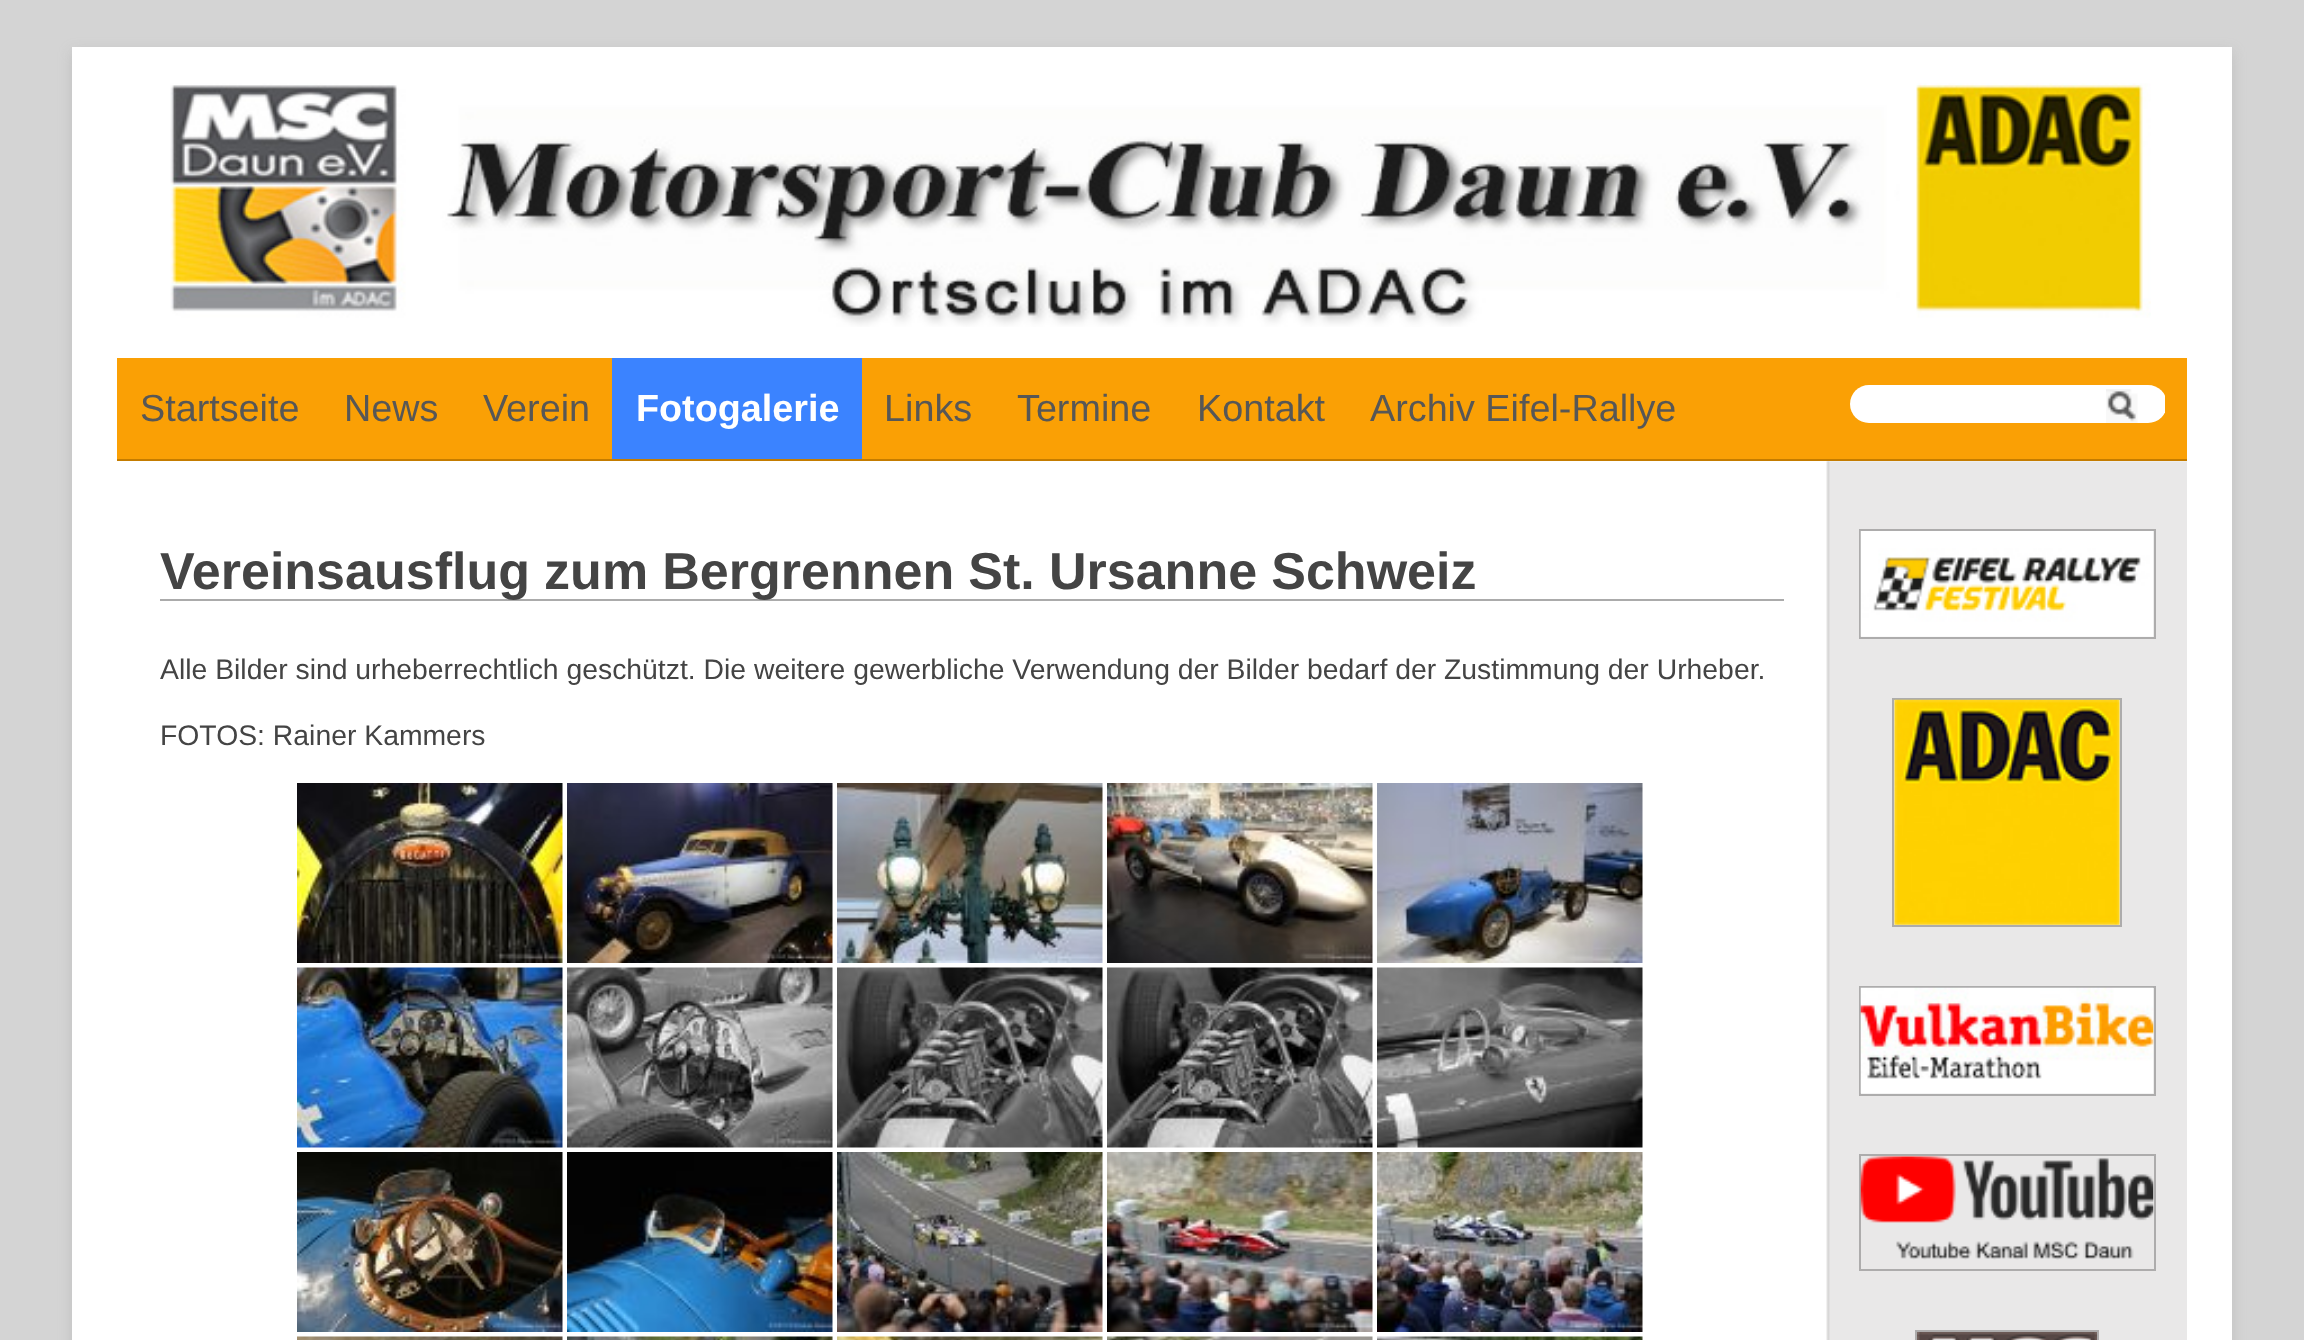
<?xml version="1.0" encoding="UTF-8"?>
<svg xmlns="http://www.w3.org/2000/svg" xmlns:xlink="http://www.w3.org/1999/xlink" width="2304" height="1340">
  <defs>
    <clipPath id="clip1"><rect x="1847" y="358" width="318" height="92" /></clipPath>
  </defs>
  <rect width="100%" height="100%" fill="#d4d4d4" />
  <rect x="72" y="52" width="2160" height="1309" fill="#8e8e8e" fill-opacity="0.3" filter="blur(7px)" />
  <rect x="72" y="47" width="2160" height="1293" fill="#ffffff" />
  <image x="170" y="83" width="1981" height="244" xlink:href="image1.png" />
  <rect x="117" y="358" width="2070" height="101" fill="#faa005" />
  <rect x="117" y="459" width="2070" height="2" fill="#c47c00" />
  <rect x="612" y="358" width="250" height="101" fill="#3b83ff" />
  <g clip-path="url(#clip1)">
    <rect x="1850" y="385" width="317" height="38" rx="19" fill="#ffffff" />
  </g>
  <image x="2106" y="389" width="32" height="34" xlink:href="image2.png" />
  <image x="1826" y="461" width="361" height="879" xlink:href="image3.png" />
  <rect x="160" y="599" width="1624" height="2" fill="#ababab" />
  <image x="297" y="783" width="266" height="180" xlink:href="image4.png" />
  <image x="567" y="783" width="266" height="180" xlink:href="image5.png" />
  <image x="837" y="783" width="266" height="180" xlink:href="image6.png" />
  <image x="1107" y="783" width="266" height="180" xlink:href="image7.png" />
  <image x="1377" y="783" width="266" height="180" xlink:href="image8.png" />
  <image x="297" y="967" width="266" height="181" xlink:href="image9.png" />
  <image x="567" y="967" width="266" height="181" xlink:href="image10.png" />
  <image x="837" y="967" width="266" height="181" xlink:href="image11.png" />
  <image x="1107" y="967" width="266" height="181" xlink:href="image12.png" />
  <image x="1377" y="967" width="266" height="181" xlink:href="image13.png" />
  <image x="297" y="1152" width="266" height="180" xlink:href="image14.png" />
  <image x="567" y="1152" width="266" height="180" xlink:href="image15.png" />
  <image x="837" y="1152" width="266" height="180" xlink:href="image16.png" />
  <image x="1107" y="1152" width="266" height="180" xlink:href="image17.png" />
  <image x="1377" y="1152" width="266" height="180" xlink:href="image18.png" />
  <image x="297" y="1336" width="266" height="4" xlink:href="image19.png" />
  <image x="567" y="1336" width="266" height="4" xlink:href="image20.png" />
  <image x="837" y="1336" width="266" height="4" xlink:href="image21.png" />
  <image x="1107" y="1336" width="266" height="4" xlink:href="image22.png" />
  <image x="1377" y="1336" width="266" height="4" xlink:href="image23.png" />
  <rect x="1860" y="530" width="295" height="108" fill="none" stroke="#adacac" stroke-width="2" />
  <image x="1860" y="531" width="294" height="106" xlink:href="image24.png" />
  <rect x="1893" y="699" width="228" height="227" fill="none" stroke="#adacac" stroke-width="2" />
  <image x="1894" y="699" width="226" height="226" xlink:href="image25.png" />
  <rect x="1860" y="987" width="295" height="108" fill="none" stroke="#adacac" stroke-width="2" />
  <image x="1860" y="987" width="294" height="107" xlink:href="image26.png" />
  <rect x="1860" y="1155" width="295" height="115" fill="none" stroke="#adacac" stroke-width="2" />
  <image x="1860" y="1156" width="294" height="104" xlink:href="image27.png" />
  <rect x="1916" y="1331" width="182" height="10" fill="none" stroke="#adacac" stroke-width="2" />
  <image x="1917" y="1332" width="180" height="8" xlink:href="image28.png" />
  <text x="140" y="421" style="font-family: Liberation Sans; font-size: 37.75px; fill: #575756">Startseite</text>
  <text x="344" y="421" style="font-family: Liberation Sans; font-size: 37.75px; fill: #575756">News</text>
  <text x="483" y="421" style="font-family: Liberation Sans; font-size: 37.75px; fill: #575756">Verein</text>
  <text x="636" y="421" style="font-family: Liberation Sans; font-size: 37.75px; font-weight: bold; fill: #ffffff">Fotogalerie</text>
  <text x="884" y="421" style="font-family: Liberation Sans; font-size: 37.75px; fill: #575756">Links</text>
  <text x="1017" y="421" style="font-family: Liberation Sans; font-size: 37.75px; fill: #575756">Termine</text>
  <text x="1197" y="421" style="font-family: Liberation Sans; font-size: 37.75px; fill: #575756">Kontakt</text>
  <text x="1370" y="421" style="font-family: Liberation Sans; font-size: 37.75px; fill: #575756">Archiv Eifel-Rallye</text>
  <text x="160" y="589" word-spacing="-0.25" style="font-family: Liberation Sans; font-size: 52px; font-weight: bold; fill: #444444">Vereinsausflug zum Bergrennen St. Ursanne Schweiz</text>
  <text x="160" y="679" style="font-family: Liberation Sans; font-size: 28.35px; fill: #444444">Alle Bilder sind urheberrechtlich geschützt. Die weitere gewerbliche Verwendung der Bilder bedarf der Zustimmung der Urheber.</text>
  <text x="160" y="745" style="font-family: Liberation Sans; font-size: 28.35px; fill: #444444">FOTOS: Rainer Kammers</text>
</svg>
